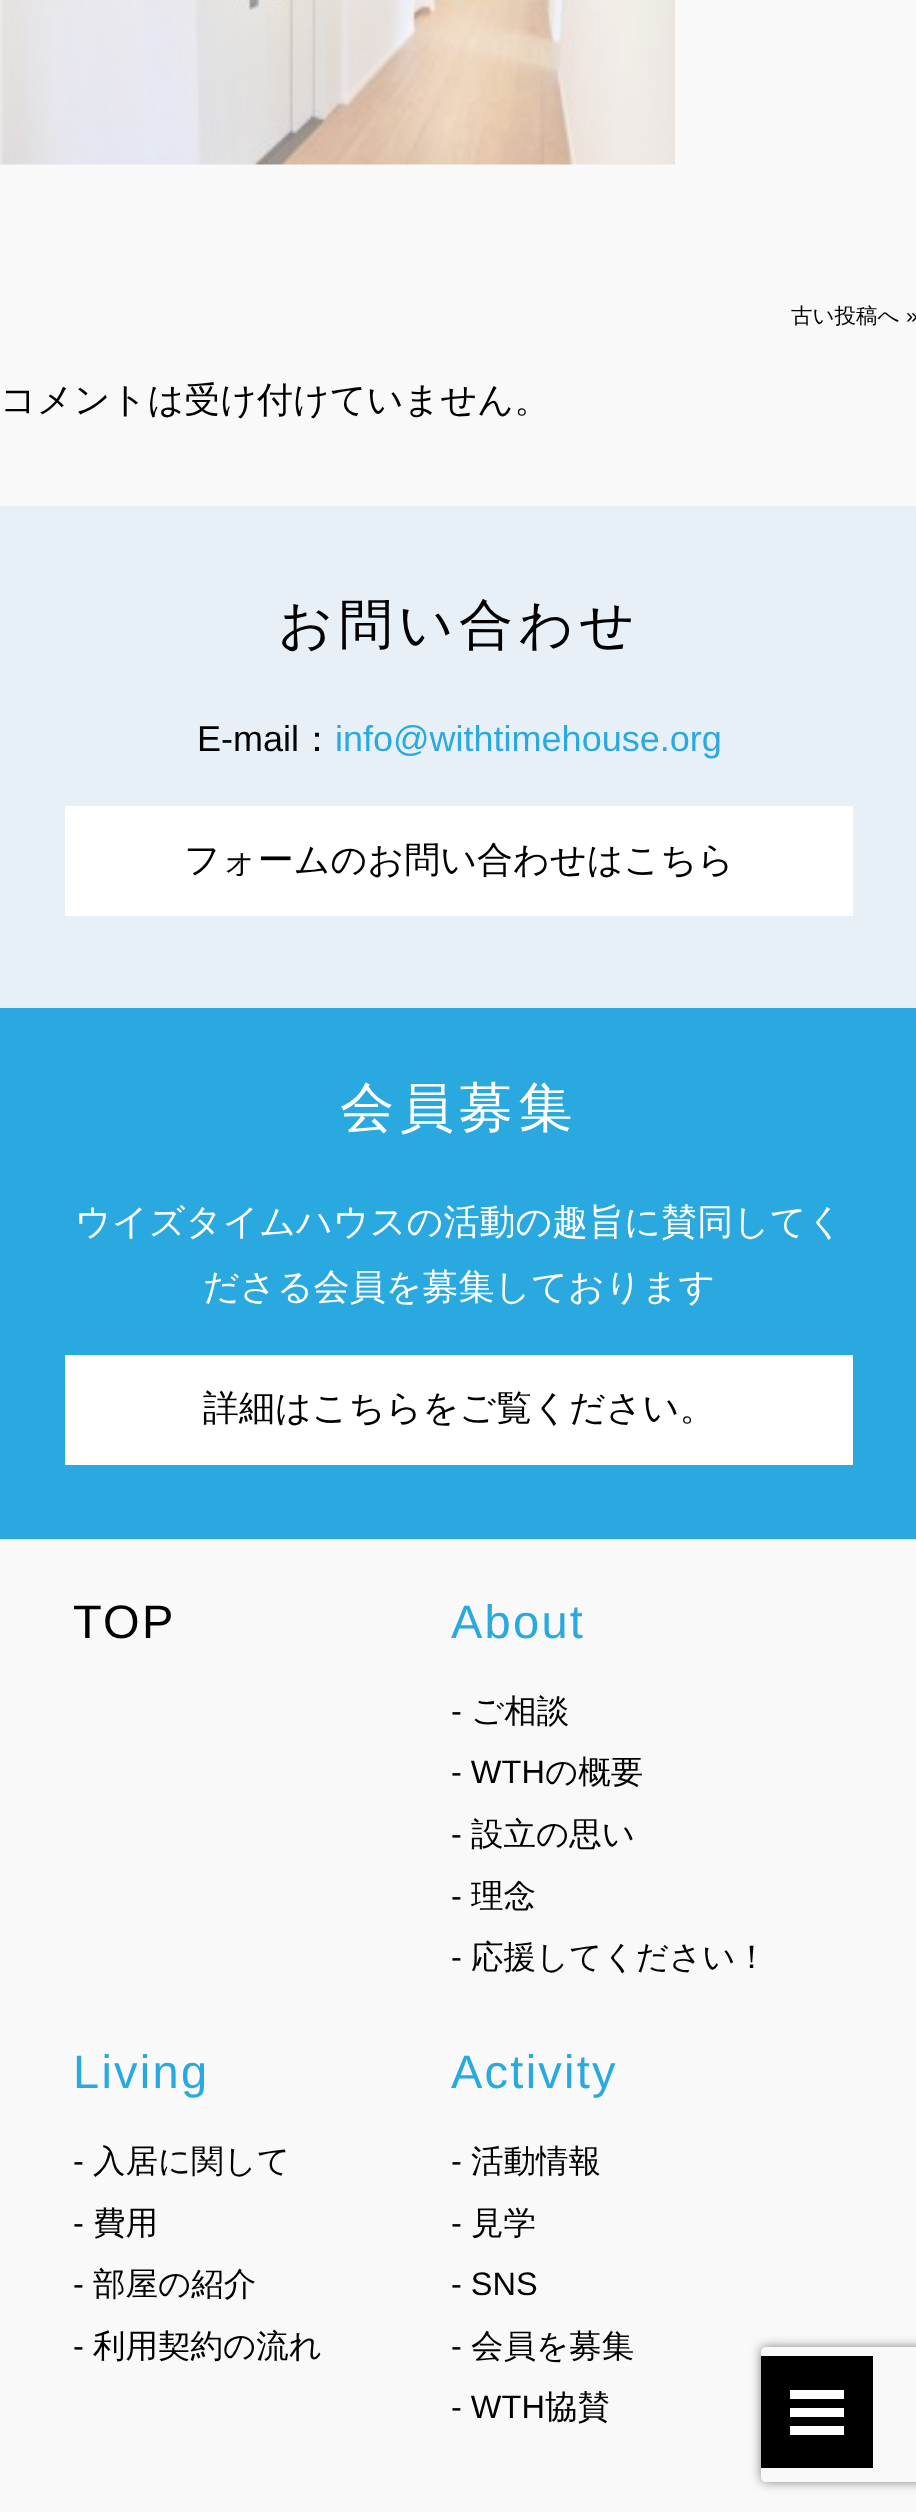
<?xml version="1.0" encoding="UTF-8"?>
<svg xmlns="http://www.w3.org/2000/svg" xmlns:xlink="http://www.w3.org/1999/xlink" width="916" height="2512">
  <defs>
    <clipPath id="clip1"><path d="M 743 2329 h 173 v 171 h -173 z m 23 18 h 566 c 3 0 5 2 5 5 v 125 c 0 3 -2 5 -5 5 h -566 c -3 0 -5 -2 -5 -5 v -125 c 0 -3 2 -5 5 -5 z" clip-rule="evenodd" /></clipPath>
  </defs>
  <rect width="100%" height="100%" fill="#f9f9f9" />
  <image x="0" y="0" width="675" height="165" xlink:href="image1.png" />
  <rect y="506" width="916" height="502" fill="#e7f0f7" />
  <rect x="65" y="806" width="788" height="110" fill="#ffffff" />
  <rect y="1008" width="916" height="531" fill="#29a9e0" />
  <rect x="65" y="1355" width="788" height="110" fill="#ffffff" />
  <g clip-path="url(#clip1)">
    <rect x="761" y="2347" width="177" height="135" rx="5" fill="#808080" filter="blur(5.5px)" />
  </g>
  <rect x="761" y="2356" width="112" height="112" fill="#000000" />
  <rect x="790" y="2390" width="54" height="9" fill="#ffffff" />
  <rect x="790" y="2408" width="54" height="9" fill="#ffffff" />
  <rect x="790" y="2426" width="54" height="9" fill="#ffffff" />
  <text x="791" y="323" style="font-family: WenQuanYi Zen Hei; font-size: 21.5px; font-weight: 500; fill: #000000">古い投稿へ</text>
  <text x="906" y="323" style="font-family: Liberation Sans; font-size: 21.5px; fill: #000000">»</text>
  <text x="0" y="412" style="font-family: WenQuanYi Zen Hei; font-size: 36px; font-weight: 500; fill: #000000">コメントは受け付けていません。</text>
  <text x="278" y="643" style="font-family: WenQuanYi Zen Hei; font-size: 54px; font-weight: 500; letter-spacing: 5.5px; fill: #000000">お問い合わせ</text>
  <text x="197" y="751" style="font-family: Liberation Sans; font-size: 36px; fill: #000000">E-mail</text>
  <text x="299" y="751" style="font-family: WenQuanYi Zen Hei; font-size: 36px; font-weight: 500; fill: #000000">：</text>
  <text x="335" y="751" style="font-family: Liberation Sans; font-size: 36px; fill: #29a9e0">info@withtimehouse.org</text>
  <text x="184" y="872" style="font-family: WenQuanYi Zen Hei; font-size: 36px; font-weight: 500; fill: #000000">フォームのお問い合わせはこちら</text>
  <text x="340" y="1126" style="font-family: WenQuanYi Zen Hei; font-size: 54px; font-weight: 500; letter-spacing: 5.5px; fill: #ffffff">会員募集</text>
  <text x="75" y="1234" style="font-family: WenQuanYi Zen Hei; font-size: 36px; font-weight: 500; fill: #ffffff">ウイズタイムハウスの活動の趣旨に賛同してく</text>
  <text x="203" y="1299" style="font-family: WenQuanYi Zen Hei; font-size: 36px; font-weight: 500; fill: #ffffff">ださる会員を募集しております</text>
  <text x="203" y="1420" style="font-family: WenQuanYi Zen Hei; font-size: 36px; font-weight: 500; fill: #000000">詳細はこちらをご覧ください。</text>
  <text x="73" y="1638" style="font-family: Liberation Sans; font-size: 47px; letter-spacing: 2.25px; fill: #000000">TOP</text>
  <text x="451" y="1638" style="font-family: Liberation Sans; font-size: 47px; letter-spacing: 2.25px; fill: #29a9e0">About</text>
  <text x="451" y="1722" style="font-family: Liberation Sans; font-size: 32.5px; fill: #000000">-</text>
  <text x="471" y="1722" style="font-family: WenQuanYi Zen Hei; font-size: 32.5px; font-weight: 500; fill: #000000">ご相談</text>
  <text x="451" y="1783" style="font-family: Liberation Sans; font-size: 32.5px; fill: #000000">- WTH</text>
  <text x="545" y="1783" style="font-family: WenQuanYi Zen Hei; font-size: 32.5px; font-weight: 500; fill: #000000">の概要</text>
  <text x="451" y="1845" style="font-family: Liberation Sans; font-size: 32.5px; fill: #000000">-</text>
  <text x="471" y="1845" style="font-family: WenQuanYi Zen Hei; font-size: 32.5px; font-weight: 500; fill: #000000">設立の思い</text>
  <text x="451" y="1907" style="font-family: Liberation Sans; font-size: 32.5px; fill: #000000">-</text>
  <text x="471" y="1907" style="font-family: WenQuanYi Zen Hei; font-size: 32.5px; font-weight: 500; fill: #000000">理念</text>
  <text x="451" y="1968" style="font-family: Liberation Sans; font-size: 32.5px; fill: #000000">-</text>
  <text x="471" y="1968" style="font-family: WenQuanYi Zen Hei; font-size: 32.5px; font-weight: 500; fill: #000000">応援してください！</text>
  <text x="73" y="2088" style="font-family: Liberation Sans; font-size: 47px; letter-spacing: 2.25px; fill: #29a9e0">Living</text>
  <text x="73" y="2172" style="font-family: Liberation Sans; font-size: 32.5px; fill: #000000">-</text>
  <text x="93" y="2172" style="font-family: WenQuanYi Zen Hei; font-size: 32.5px; font-weight: 500; fill: #000000">入居に関して</text>
  <text x="73" y="2234" style="font-family: Liberation Sans; font-size: 32.5px; fill: #000000">-</text>
  <text x="93" y="2234" style="font-family: WenQuanYi Zen Hei; font-size: 32.5px; font-weight: 500; fill: #000000">費用</text>
  <text x="73" y="2295" style="font-family: Liberation Sans; font-size: 32.5px; fill: #000000">-</text>
  <text x="93" y="2295" style="font-family: WenQuanYi Zen Hei; font-size: 32.5px; font-weight: 500; fill: #000000">部屋の紹介</text>
  <text x="73" y="2357" style="font-family: Liberation Sans; font-size: 32.5px; fill: #000000">-</text>
  <text x="93" y="2357" style="font-family: WenQuanYi Zen Hei; font-size: 32.5px; font-weight: 500; fill: #000000">利用契約の流れ</text>
  <text x="451" y="2088" style="font-family: Liberation Sans; font-size: 47px; letter-spacing: 2.25px; fill: #29a9e0">Activity</text>
  <text x="451" y="2172" style="font-family: Liberation Sans; font-size: 32.5px; fill: #000000">-</text>
  <text x="471" y="2172" style="font-family: WenQuanYi Zen Hei; font-size: 32.5px; font-weight: 500; fill: #000000">活動情報</text>
  <text x="451" y="2234" style="font-family: Liberation Sans; font-size: 32.5px; fill: #000000">-</text>
  <text x="471" y="2234" style="font-family: WenQuanYi Zen Hei; font-size: 32.5px; font-weight: 500; fill: #000000">見学</text>
  <text x="451" y="2295" style="font-family: Liberation Sans; font-size: 32.5px; fill: #000000">- SNS</text>
  <text x="451" y="2357" style="font-family: Liberation Sans; font-size: 32.5px; fill: #000000">-</text>
  <text x="471" y="2357" style="font-family: WenQuanYi Zen Hei; font-size: 32.5px; font-weight: 500; fill: #000000">会員を募集</text>
  <text x="451" y="2418" style="font-family: Liberation Sans; font-size: 32.5px; fill: #000000">- WTH</text>
  <text x="545" y="2418" style="font-family: WenQuanYi Zen Hei; font-size: 32.5px; font-weight: 500; fill: #000000">協賛</text>
</svg>
